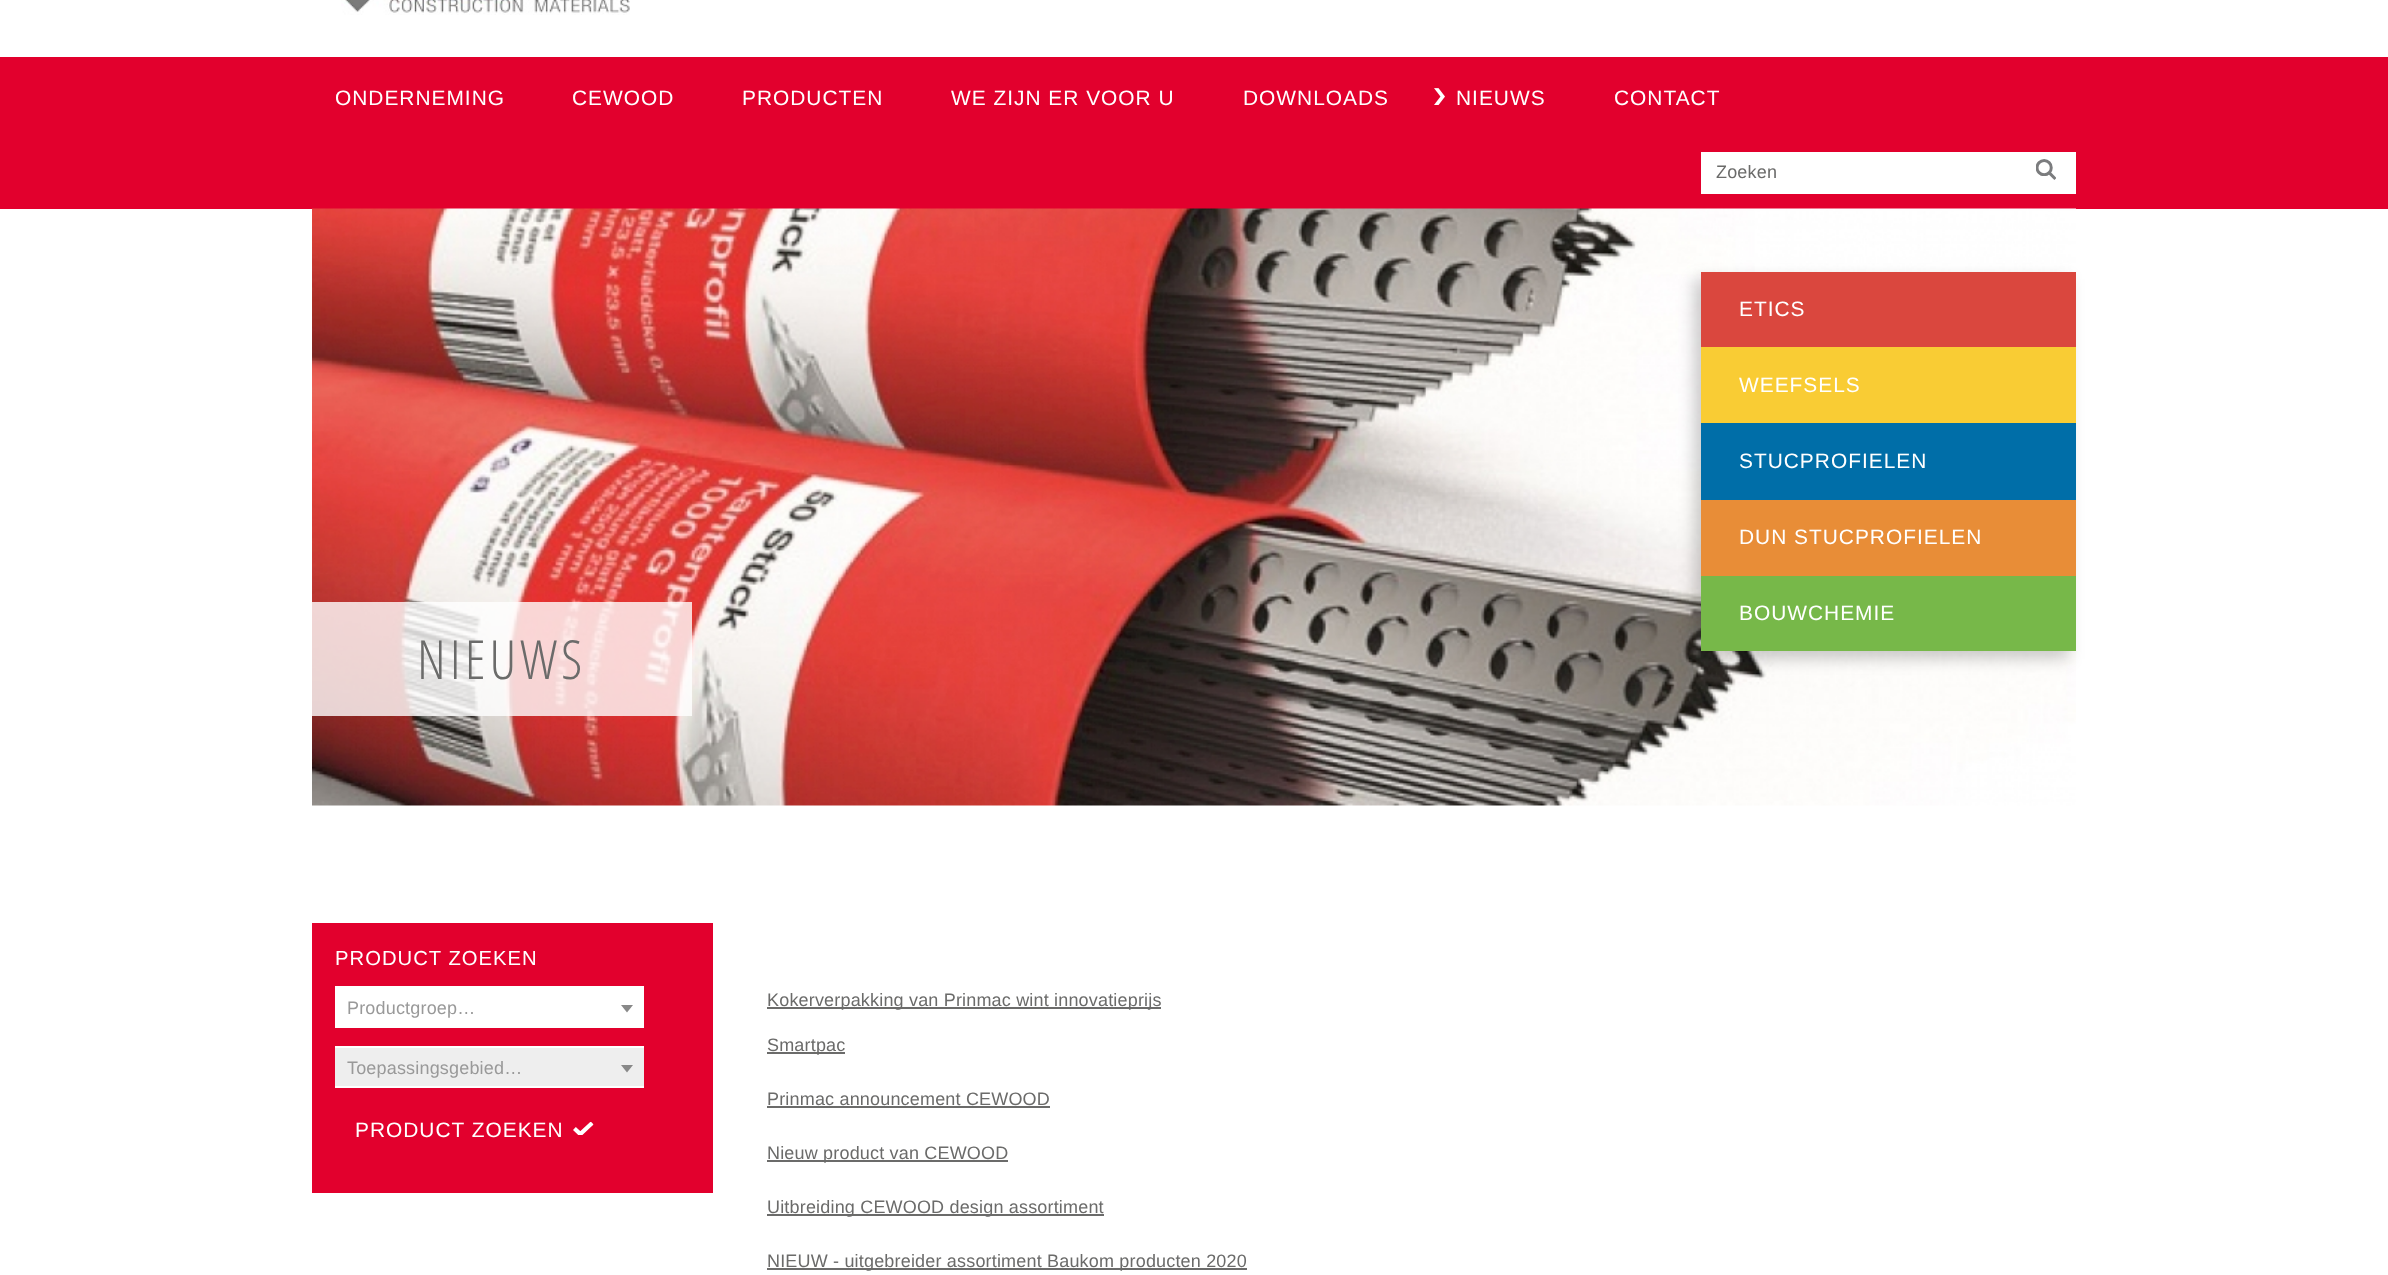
<?xml version="1.0" encoding="UTF-8"?>
<svg xmlns="http://www.w3.org/2000/svg" xmlns:xlink="http://www.w3.org/1999/xlink" width="2388" height="1275">
  <rect width="100%" height="100%" fill="#ffffff" />
  <image x="341" y="0" width="289" height="15" xlink:href="image1.png" />
  <rect y="57" width="2388" height="152" fill="#e2002d" />
  <image x="1434" y="88" width="11" height="17" xlink:href="image2.png" />
  <rect x="1701" y="152" width="375" height="42" fill="#ffffff" />
  <image x="2036" y="159" width="20" height="21" xlink:href="image3.png" />
  <image x="312" y="208" width="1764" height="598" xlink:href="image4.png" />
  <rect x="1694" y="279" width="375" height="380" fill="#000000" fill-opacity="0.2" filter="blur(7.5px)" />
  <rect x="1701" y="272" width="375" height="75" fill="#da473e" />
  <rect x="1701" y="347" width="375" height="76" fill="#f9cc34" />
  <rect x="1701" y="423" width="375" height="77" fill="#006ea8" />
  <rect x="1701" y="500" width="375" height="76" fill="#e88d37" />
  <rect x="1701" y="576" width="375" height="75" fill="#77b849" />
  <rect x="312" y="602" width="380" height="114" fill="#ffffff" fill-opacity="0.8" />
  <rect x="312" y="923" width="401" height="270" fill="#e2002d" />
  <rect x="335" y="986" width="309" height="42" fill="#ffffff" />
  <path d="M 621 1005 h 12 l -6 7.5 z" fill="#888888" />
  <rect x="335" y="1048" width="309" height="38" fill="#eeeeee" />
  <rect x="335" y="1046" width="309" height="2" fill="#ffffff" />
  <rect x="335" y="1086" width="309" height="2" fill="#ffffff" />
  <path d="M 621 1065 h 12 l -6 7.5 z" fill="#888888" />
  <image x="573" y="1122" width="21" height="13" xlink:href="image5.png" />
  <rect x="767" y="1007" width="394" height="2" fill="#6b6b6a" />
  <rect x="767" y="1052" width="78" height="2" fill="#6b6b6a" />
  <rect x="767" y="1106" width="283" height="2" fill="#6b6b6a" />
  <rect x="767" y="1160" width="241" height="2" fill="#6b6b6a" />
  <rect x="767" y="1214" width="337" height="2" fill="#6b6b6a" />
  <rect x="767" y="1268" width="480" height="2" fill="#6b6b6a" />
  <text x="335" y="105" style="font-family: Liberation Sans; font-size: 20.9px; letter-spacing: 1px; fill: #ffffff">ONDERNEMING</text>
  <text x="572" y="105" style="font-family: Liberation Sans; font-size: 20.9px; letter-spacing: 1px; fill: #ffffff">CEWOOD</text>
  <text x="742" y="105" style="font-family: Liberation Sans; font-size: 20.9px; letter-spacing: 1px; fill: #ffffff">PRODUCTEN</text>
  <text x="951" y="105" style="font-family: Liberation Sans; font-size: 20.9px; letter-spacing: 1px; fill: #ffffff">WE ZIJN ER VOOR U</text>
  <text x="1243" y="105" style="font-family: Liberation Sans; font-size: 20.9px; letter-spacing: 1px; fill: #ffffff">DOWNLOADS</text>
  <text x="1456" y="105" style="font-family: Liberation Sans; font-size: 20.9px; letter-spacing: 1px; fill: #ffffff">NIEUWS</text>
  <text x="1614" y="105" style="font-family: Liberation Sans; font-size: 20.9px; letter-spacing: 1px; fill: #ffffff">CONTACT</text>
  <text x="1716" y="178" style="font-family: Liberation Sans; font-size: 18px; letter-spacing: 0.18px; fill: #6b6b6a">Zoeken</text>
  <text x="1739" y="316" style="font-family: Liberation Sans; font-size: 20.9px; letter-spacing: 1px; fill: #ffffff">ETICS</text>
  <text x="1739" y="392" style="font-family: Liberation Sans; font-size: 20.9px; letter-spacing: 1px; fill: #ffffff">WEEFSELS</text>
  <text x="1739" y="468" style="font-family: Liberation Sans; font-size: 20.9px; letter-spacing: 1px; fill: #ffffff">STUCPROFIELEN</text>
  <text x="1739" y="544" style="font-family: Liberation Sans; font-size: 20.9px; letter-spacing: 1px; fill: #ffffff">DUN STUCPROFIELEN</text>
  <text x="1739" y="620" style="font-family: Liberation Sans; font-size: 20.9px; letter-spacing: 1px; fill: #ffffff">BOUWCHEMIE</text>
  <text x="417" y="679" style="font-family: Open Sans Condensed; font-size: 54px; font-weight: 300; letter-spacing: 4px; fill: #6b6b6a">NIEUWS</text>
  <text x="335" y="965" style="font-family: Liberation Sans; font-size: 20.25px; letter-spacing: 1px; fill: #ffffff">PRODUCT ZOEKEN</text>
  <text x="347" y="1014" style="font-family: Liberation Sans; font-size: 18px; letter-spacing: 0.18px; fill: #999999">Productgroep…</text>
  <text x="347" y="1074" style="font-family: Liberation Sans; font-size: 18px; letter-spacing: 0.18px; fill: #999999">Toepassingsgebied…</text>
  <text x="355" y="1137" style="font-family: Liberation Sans; font-size: 20.9px; letter-spacing: 1px; fill: #ffffff">PRODUCT ZOEKEN</text>
  <text x="767" y="1006" style="font-family: Liberation Sans; font-size: 18px; letter-spacing: 0.18px; fill: #6b6b6a">Kokerverpakking van Prinmac wint innovatieprijs</text>
  <text x="767" y="1051" style="font-family: Liberation Sans; font-size: 18px; letter-spacing: 0.18px; fill: #6b6b6a">Smartpac</text>
  <text x="767" y="1105" style="font-family: Liberation Sans; font-size: 18px; letter-spacing: 0.18px; fill: #6b6b6a">Prinmac announcement CEWOOD</text>
  <text x="767" y="1159" style="font-family: Liberation Sans; font-size: 18px; letter-spacing: 0.18px; fill: #6b6b6a">Nieuw product van CEWOOD</text>
  <text x="767" y="1213" style="font-family: Liberation Sans; font-size: 18px; letter-spacing: 0.18px; fill: #6b6b6a">Uitbreiding CEWOOD design assortiment</text>
  <text x="767" y="1267" style="font-family: Liberation Sans; font-size: 18px; letter-spacing: 0.18px; fill: #6b6b6a">NIEUW - uitgebreider assortiment Baukom producten 2020</text>
</svg>
